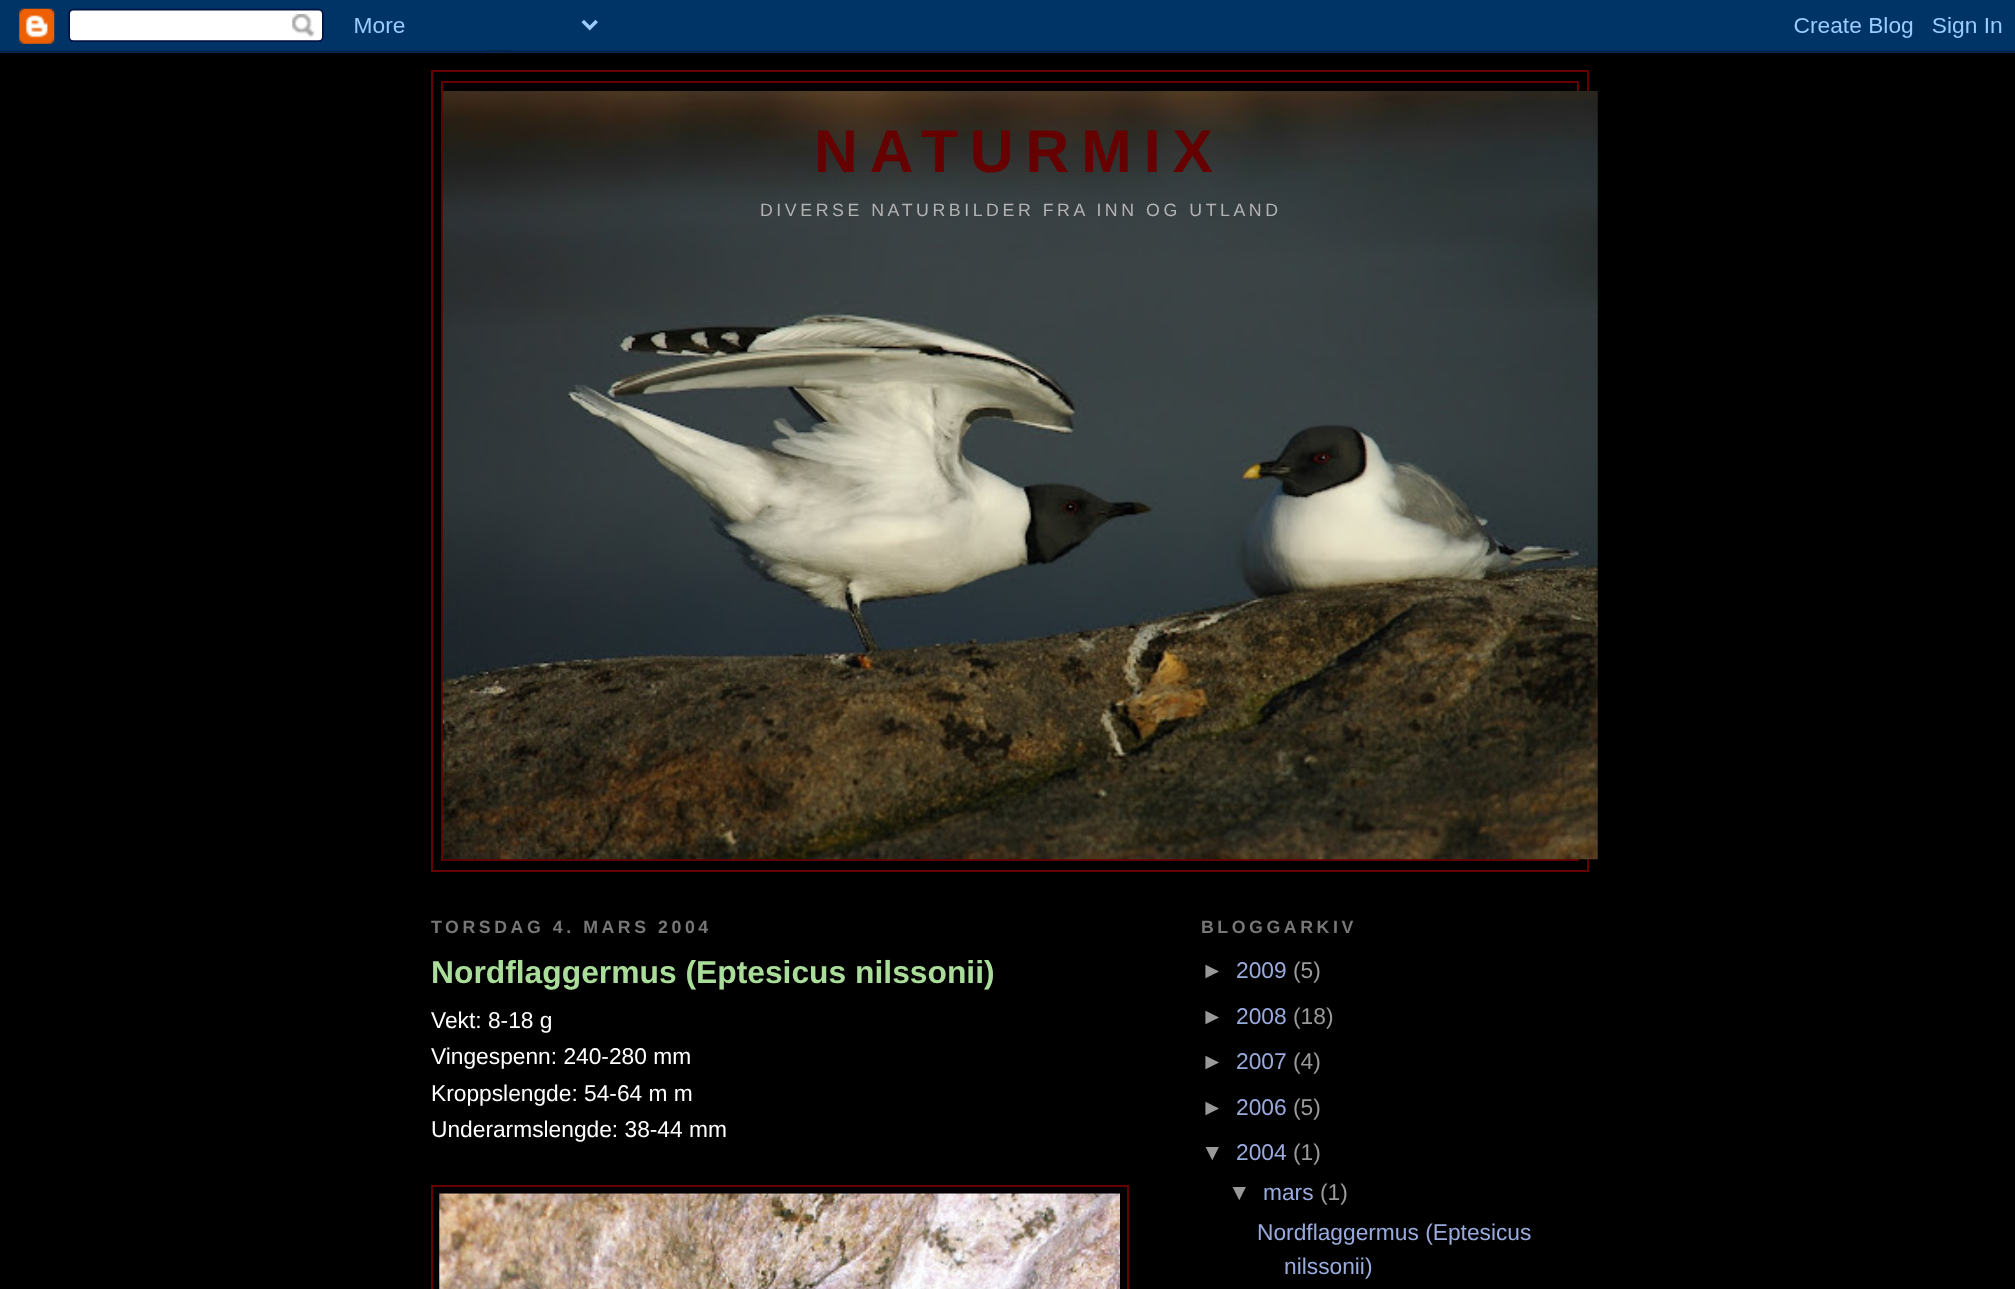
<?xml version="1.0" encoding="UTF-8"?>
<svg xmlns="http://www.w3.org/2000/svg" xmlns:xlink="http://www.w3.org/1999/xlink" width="2015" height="1289">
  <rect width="100%" height="100%" fill="#000000" />
  <image x="0" y="0" width="2015" height="53" xlink:href="image1.png" />
  <rect x="432" y="71" width="1156" height="800" fill="none" stroke="#660000" stroke-width="2" />
  <rect x="442" y="82" width="1136" height="778" fill="none" stroke="#660000" stroke-width="2" />
  <image x="442" y="91" width="1156" height="769" xlink:href="image2.png" />
  <rect x="432" y="1186" width="696" height="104" fill="none" stroke="#660000" stroke-width="2" />
  <image x="439" y="1193" width="681" height="96" xlink:href="image3.png" />
  <text x="814" y="172" style="font-family: Liberation Sans; font-size: 60.5px; font-weight: bold; letter-spacing: 12px; fill: #660000">NATURMIX</text>
  <text x="760" y="216" style="font-family: Liberation Sans; font-size: 17.75px; letter-spacing: 3.55px; fill: #b3b3b3">DIVERSE NATURBILDER FRA INN OG UTLAND</text>
  <text x="431" y="933" style="font-family: Liberation Sans; font-size: 17.75px; font-weight: bold; letter-spacing: 3.55px; fill: #777777">TORSDAG 4. MARS 2004</text>
  <text x="431" y="983" style="font-family: Liberation Sans; font-size: 31.8px; font-weight: bold; fill: #aadd99">Nordflaggermus (Eptesicus nilssonii)</text>
  <text x="431" y="1028" style="font-family: Liberation Sans; font-size: 22.75px; fill: #ffffff">Vekt: 8-18 g</text>
  <text x="431" y="1064" style="font-family: Liberation Sans; font-size: 22.75px; fill: #ffffff">Vingespenn: 240-280 mm</text>
  <text x="431" y="1101" style="font-family: Liberation Sans; font-size: 22.75px; fill: #ffffff">Kroppslengde: 54-64 m m</text>
  <text x="431" y="1137" style="font-family: Liberation Sans; font-size: 22.75px; fill: #ffffff">Underarmslengde: 38-44 mm</text>
  <text x="1201" y="933" style="font-family: Liberation Sans; font-size: 17.75px; font-weight: bold; letter-spacing: 3.55px; fill: #777777">BLOGGARKIV</text>
  <text x="1201" y="978" style="font-family: Liberation Sans; font-size: 22.75px; fill: #999999">►</text>
  <text x="1236" y="978" style="font-family: Liberation Sans; font-size: 22.75px; fill: #99aadd">2009</text>
  <text x="1293" y="978" style="font-family: Liberation Sans; font-size: 22.75px; fill: #999999">(5)</text>
  <text x="1201" y="1024" style="font-family: Liberation Sans; font-size: 22.75px; fill: #999999">►</text>
  <text x="1236" y="1024" style="font-family: Liberation Sans; font-size: 22.75px; fill: #99aadd">2008</text>
  <text x="1293" y="1024" style="font-family: Liberation Sans; font-size: 22.75px; fill: #999999">(18)</text>
  <text x="1201" y="1069" style="font-family: Liberation Sans; font-size: 22.75px; fill: #999999">►</text>
  <text x="1236" y="1069" style="font-family: Liberation Sans; font-size: 22.75px; fill: #99aadd">2007</text>
  <text x="1293" y="1069" style="font-family: Liberation Sans; font-size: 22.75px; fill: #999999">(4)</text>
  <text x="1201" y="1115" style="font-family: Liberation Sans; font-size: 22.75px; fill: #999999">►</text>
  <text x="1236" y="1115" style="font-family: Liberation Sans; font-size: 22.75px; fill: #99aadd">2006</text>
  <text x="1293" y="1115" style="font-family: Liberation Sans; font-size: 22.75px; fill: #999999">(5)</text>
  <text x="1201" y="1160" style="font-family: Liberation Sans; font-size: 22.75px; fill: #999999">▼</text>
  <text x="1236" y="1160" style="font-family: Liberation Sans; font-size: 22.75px; fill: #99aadd">2004</text>
  <text x="1293" y="1160" style="font-family: Liberation Sans; font-size: 22.75px; fill: #999999">(1)</text>
  <text x="1228" y="1200" style="font-family: Liberation Sans; font-size: 22.75px; fill: #999999">▼</text>
  <text x="1263" y="1200" style="font-family: Liberation Sans; font-size: 22.75px; fill: #99aadd">mars</text>
  <text x="1320" y="1200" style="font-family: Liberation Sans; font-size: 22.75px; fill: #999999">(1)</text>
  <text x="1257" y="1240" style="font-family: Liberation Sans; font-size: 22.75px; fill: #99aadd">Nordflaggermus (Eptesicus</text>
  <text x="1284" y="1274" style="font-family: Liberation Sans; font-size: 22.75px; fill: #99aadd">nilssonii)</text>
</svg>
